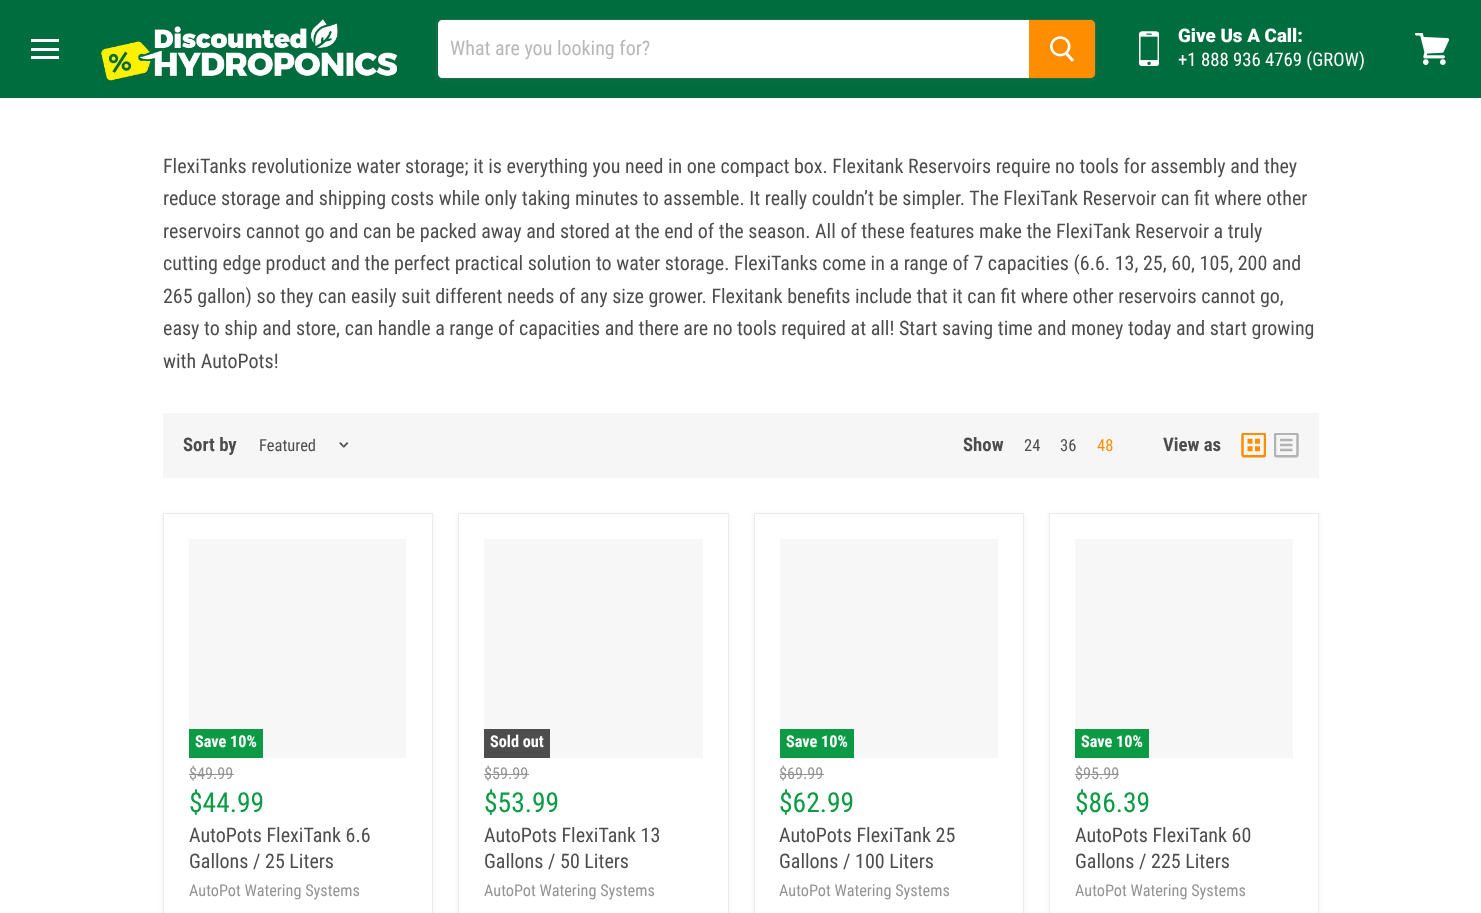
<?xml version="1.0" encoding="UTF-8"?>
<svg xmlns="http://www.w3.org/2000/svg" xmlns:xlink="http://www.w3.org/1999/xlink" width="1481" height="913">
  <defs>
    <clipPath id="clip1"><path d="M 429 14 h 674 v 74 h -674 z m 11 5 h 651 c 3 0 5 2 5 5 v 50 c 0 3 -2 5 -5 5 h -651 c -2 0 -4 -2 -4 -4 v -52 c 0 -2 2 -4 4 -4 z" clip-rule="evenodd" /></clipPath>
  </defs>
  <rect width="100%" height="100%" fill="#ffffff" />
  <rect width="1481" height="98" fill="#006d3e" />
  <rect x="31" y="39" width="28" height="3" fill="#ffffff" />
  <rect x="31" y="48" width="28" height="3" fill="#ffffff" />
  <rect x="31" y="56" width="28" height="3" fill="#ffffff" />
  <image x="101" y="14" width="301" height="67" xlink:href="image1.png" />
  <g clip-path="url(#clip1)">
    <rect x="436" y="21" width="660" height="60" rx="5" fill="#7f7f7f" fill-opacity="0.11" filter="blur(2px)" />
  </g>
  <path d="M 440 19.5 h 651 c 2.5 0 4.5 2 4.5 4.5 v 50 c 0 2.5 -2 4.5 -4.5 4.5 h -651 c -2 0 -3.5 -1.5 -3.5 -3.5 v -52 c 0 -2 1.5 -3.5 3.5 -3.5 z" fill="none" stroke="#7f7f7f" stroke-opacity="0.2" />
  <path d="M 442 20 h 587 v 58 h -587 c -2 0 -4 -2 -4 -4 v -50 c 0 -2 2 -4 4 -4 z" fill="#ffffff" />
  <path d="M 1029.5 20.5 h 61.5 c 2 0 3.5 1.5 3.5 3.5 v 50 c 0 2 -1.5 3.5 -3.5 3.5 h -61.5 z" fill="#ff8d00" stroke="#ff8d00" />
  <image x="1050" y="36" width="25" height="26" xlink:href="image2.png" />
  <image x="1139" y="31" width="20" height="35" xlink:href="image3.png" />
  <image x="1415" y="33" width="35" height="32" xlink:href="image4.png" />
  <rect x="163" y="413" width="1156" height="65" fill="#f6f6f6" />
  <image x="339" y="442" width="10" height="6" xlink:href="image5.png" />
  <image x="1241" y="433" width="25" height="25" xlink:href="image6.png" />
  <image x="1274" y="433" width="25" height="25" xlink:href="image7.png" />
  <rect x="163" y="514" width="270" height="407" fill="#7f7f7f" fill-opacity="0.11" filter="blur(2.5px)" />
  <rect x="163.5" y="513.5" width="269" height="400" fill="#ffffff" stroke="#ebebeb" />
  <rect x="189" y="539" width="217" height="219" fill="#f7f7f7" />
  <rect x="189" y="729" width="74" height="29" fill="#0c9b44" />
  <rect x="189" y="774" width="45" height="1" fill="#949494" />
  <rect x="458" y="514" width="271" height="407" fill="#7f7f7f" fill-opacity="0.11" filter="blur(2.5px)" />
  <rect x="458.5" y="513.5" width="270" height="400" fill="#ffffff" stroke="#ebebeb" />
  <rect x="484" y="539" width="219" height="219" fill="#f7f7f7" />
  <rect x="484" y="729" width="66" height="29" fill="#4d4d4d" />
  <rect x="484" y="774" width="45" height="1" fill="#949494" />
  <rect x="754" y="514" width="270" height="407" fill="#7f7f7f" fill-opacity="0.11" filter="blur(2.5px)" />
  <rect x="754.5" y="513.5" width="269" height="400" fill="#ffffff" stroke="#ebebeb" />
  <rect x="780" y="539" width="218" height="219" fill="#f7f7f7" />
  <rect x="780" y="729" width="74" height="29" fill="#0c9b44" />
  <rect x="780" y="774" width="44" height="1" fill="#949494" />
  <rect x="1049" y="514" width="270" height="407" fill="#7f7f7f" fill-opacity="0.11" filter="blur(2.5px)" />
  <rect x="1049.5" y="513.5" width="269" height="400" fill="#ffffff" stroke="#ebebeb" />
  <rect x="1075" y="539" width="218" height="219" fill="#f7f7f7" />
  <rect x="1075" y="729" width="74" height="29" fill="#0c9b44" />
  <rect x="1075" y="774" width="44" height="1" fill="#949494" />
  <text x="450" y="55" style="font-family: Roboto Condensed; font-size: 20px; fill: #b8b8b8">What are you looking for?</text>
  <text x="1178" y="42" style="font-family: Roboto; font-size: 18.75px; font-weight: 900; fill: #ffffff">Give Us A Call:</text>
  <text x="1178" y="66" style="font-family: Roboto Condensed; font-size: 18.75px; fill: #ffffff">+1 888 936 4769 (GROW)</text>
  <text x="163" y="173" style="font-family: Roboto Condensed; font-size: 20px; fill: #4d4d4d">FlexiTanks revolutionize water storage; it is everything you need in one compact box. Flexitank Reservoirs require no tools for assembly and they</text>
  <text x="163" y="205" style="font-family: Roboto Condensed; font-size: 20px; fill: #4d4d4d">reduce storage and shipping costs while only taking minutes to assemble. It really couldn’t be simpler. The FlexiTank Reservoir can fit where other</text>
  <text x="163" y="238" style="font-family: Roboto Condensed; font-size: 20px; fill: #4d4d4d">reservoirs cannot go and can be packed away and stored at the end of the season. All of these features make the FlexiTank Reservoir a truly</text>
  <text x="163" y="270" style="font-family: Roboto Condensed; font-size: 20px; fill: #4d4d4d">cutting edge product and the perfect practical solution to water storage. FlexiTanks come in a range of 7 capacities (6.6. 13, 25, 60, 105, 200 and</text>
  <text x="163" y="303" style="font-family: Roboto Condensed; font-size: 20px; fill: #4d4d4d">265 gallon) so they can easily suit different needs of any size grower. Flexitank benefits include that it can fit where other reservoirs cannot go,</text>
  <text x="163" y="335" style="font-family: Roboto Condensed; font-size: 20px; fill: #4d4d4d">easy to ship and store, can handle a range of capacities and there are no tools required at all! Start saving time and money today and start growing</text>
  <text x="163" y="368" style="font-family: Roboto Condensed; font-size: 20px; fill: #4d4d4d">with AutoPots!</text>
  <text x="183" y="451" style="font-family: Roboto Condensed; font-size: 18.75px; font-weight: bold; fill: #4d4d4d">Sort by</text>
  <text x="259" y="451" style="font-family: Roboto Condensed; font-size: 16.5px; fill: #4d4d4d">Featured</text>
  <text x="963" y="451" style="font-family: Roboto Condensed; font-size: 18.75px; font-weight: bold; fill: #4d4d4d">Show</text>
  <text x="1024" y="451" style="font-family: Roboto Condensed; font-size: 16.5px; fill: #4d4d4d">24</text>
  <text x="1060" y="451" style="font-family: Roboto Condensed; font-size: 16.5px; fill: #4d4d4d">36</text>
  <text x="1097" y="451" style="font-family: Roboto Condensed; font-size: 16.5px; fill: #ff8d00">48</text>
  <text x="1163" y="451" style="font-family: Roboto Condensed; font-size: 18.75px; font-weight: bold; fill: #4d4d4d">View as</text>
  <text x="195" y="747" style="font-family: Roboto Condensed; font-size: 16.25px; font-weight: bold; fill: #ffffff">Save 10%</text>
  <text x="189" y="779" style="font-family: Roboto Condensed; font-size: 16.25px; fill: #949494">$49.99</text>
  <text x="189" y="812" style="font-family: Roboto Condensed; font-size: 27.5px; fill: #0c9b44">$44.99</text>
  <text x="189" y="842" style="font-family: Roboto Condensed; font-size: 20px; fill: #4d4d4d">AutoPots FlexiTank 6.6</text>
  <text x="189" y="868" style="font-family: Roboto Condensed; font-size: 20px; fill: #4d4d4d">Gallons / 25 Liters</text>
  <text x="189" y="896" style="font-family: Roboto Condensed; font-size: 16.25px; fill: #949494">AutoPot Watering Systems</text>
  <text x="490" y="747" style="font-family: Roboto Condensed; font-size: 16.25px; font-weight: bold; fill: #ffffff">Sold out</text>
  <text x="484" y="779" style="font-family: Roboto Condensed; font-size: 16.25px; fill: #949494">$59.99</text>
  <text x="484" y="812" style="font-family: Roboto Condensed; font-size: 27.5px; fill: #0c9b44">$53.99</text>
  <text x="484" y="842" style="font-family: Roboto Condensed; font-size: 20px; fill: #4d4d4d">AutoPots FlexiTank 13</text>
  <text x="484" y="868" style="font-family: Roboto Condensed; font-size: 20px; fill: #4d4d4d">Gallons / 50 Liters</text>
  <text x="484" y="896" style="font-family: Roboto Condensed; font-size: 16.25px; fill: #949494">AutoPot Watering Systems</text>
  <text x="786" y="747" style="font-family: Roboto Condensed; font-size: 16.25px; font-weight: bold; fill: #ffffff">Save 10%</text>
  <text x="779" y="779" style="font-family: Roboto Condensed; font-size: 16.25px; fill: #949494">$69.99</text>
  <text x="779" y="812" style="font-family: Roboto Condensed; font-size: 27.5px; fill: #0c9b44">$62.99</text>
  <text x="779" y="842" style="font-family: Roboto Condensed; font-size: 20px; fill: #4d4d4d">AutoPots FlexiTank 25</text>
  <text x="779" y="868" style="font-family: Roboto Condensed; font-size: 20px; fill: #4d4d4d">Gallons / 100 Liters</text>
  <text x="779" y="896" style="font-family: Roboto Condensed; font-size: 16.25px; fill: #949494">AutoPot Watering Systems</text>
  <text x="1081" y="747" style="font-family: Roboto Condensed; font-size: 16.25px; font-weight: bold; fill: #ffffff">Save 10%</text>
  <text x="1075" y="779" style="font-family: Roboto Condensed; font-size: 16.25px; fill: #949494">$95.99</text>
  <text x="1075" y="812" style="font-family: Roboto Condensed; font-size: 27.5px; fill: #0c9b44">$86.39</text>
  <text x="1075" y="842" style="font-family: Roboto Condensed; font-size: 20px; fill: #4d4d4d">AutoPots FlexiTank 60</text>
  <text x="1075" y="868" style="font-family: Roboto Condensed; font-size: 20px; fill: #4d4d4d">Gallons / 225 Liters</text>
  <text x="1075" y="896" style="font-family: Roboto Condensed; font-size: 16.25px; fill: #949494">AutoPot Watering Systems</text>
</svg>
